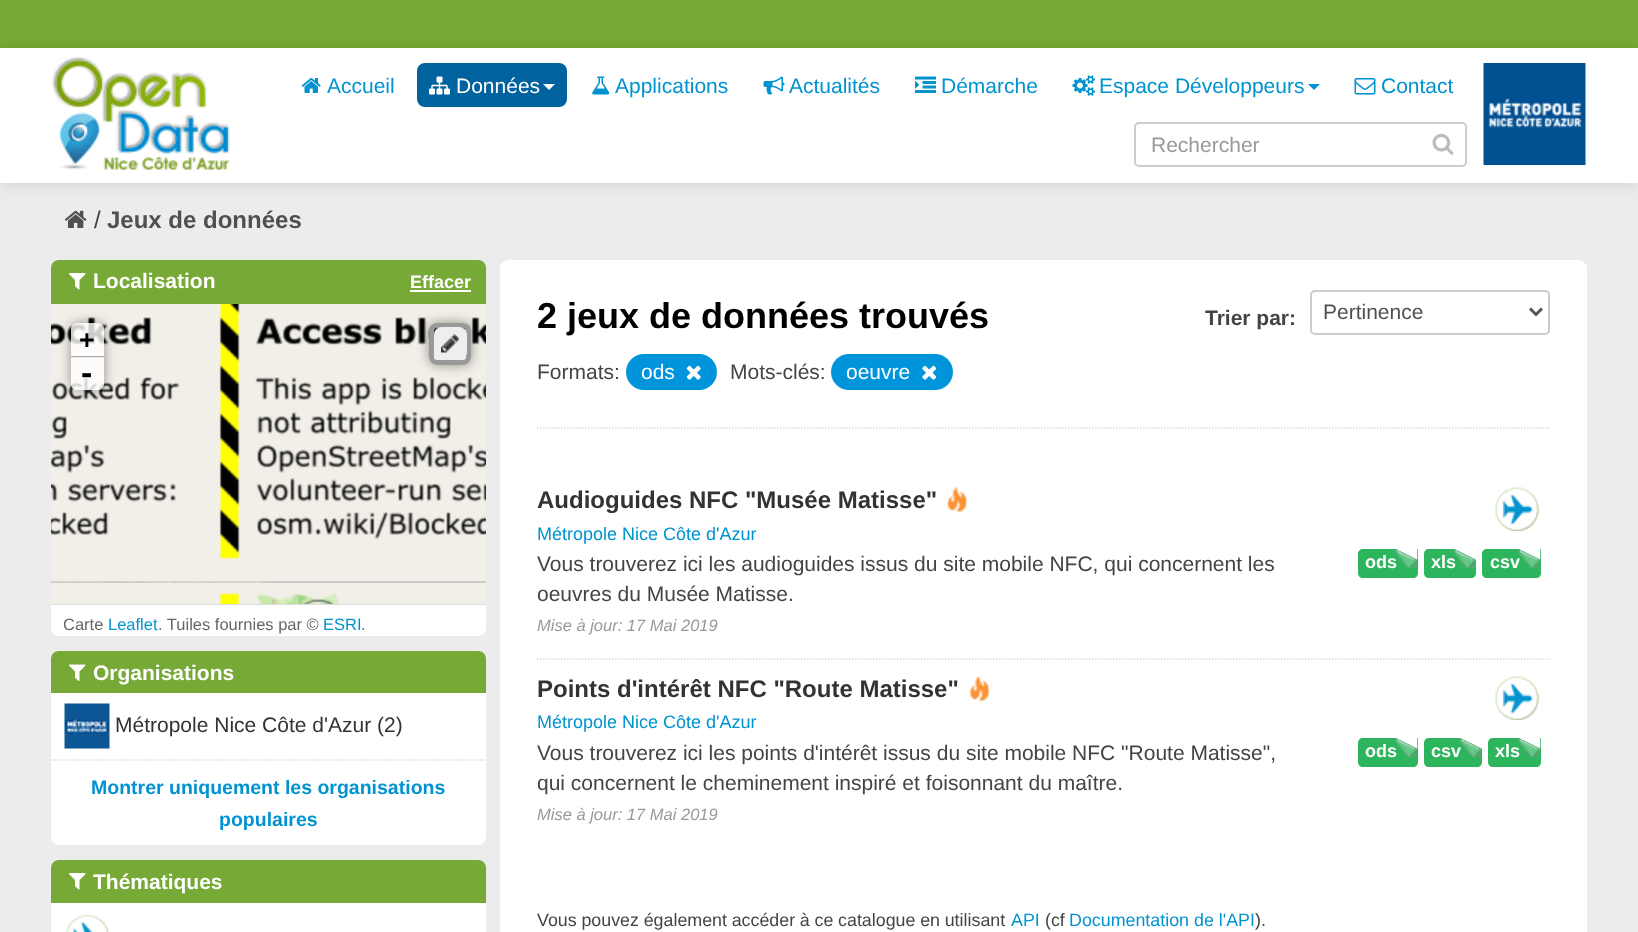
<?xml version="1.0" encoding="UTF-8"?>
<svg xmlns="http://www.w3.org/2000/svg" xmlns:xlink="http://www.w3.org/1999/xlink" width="1638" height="932">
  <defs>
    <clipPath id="clip1"><path d="M 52 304 h 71 v 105 h -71 z m 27 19 h 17 c 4.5 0 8 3.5 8 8 v 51 c 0 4.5 -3.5 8 -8 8 h -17 c -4.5 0 -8 -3.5 -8 -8 v -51 c 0 -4.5 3.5 -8 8 -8 z" clip-rule="evenodd" /></clipPath>
    <clipPath id="clip2"><path d="M 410 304 h 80 v 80 h -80 z m 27 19 h 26 c 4.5 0 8 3.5 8 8 v 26 c 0 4.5 -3.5 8 -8 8 h -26 c -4.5 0 -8 -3.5 -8 -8 v -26 c 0 -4.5 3.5 -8 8 -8 z" clip-rule="evenodd" /></clipPath>
  </defs>
  <rect width="100%" height="100%" fill="#ececec" />
  <rect width="1638" height="48" fill="#76a935" />
  <rect y="50" width="1638" height="135" fill="#000000" fill-opacity="0.1" filter="blur(7.5px)" />
  <rect y="48" width="1638" height="135" fill="#ffffff" />
  <image x="52" y="57" width="178" height="113" xlink:href="image1.png" />
  <image x="301" y="78" width="20" height="15" xlink:href="image2.png" />
  <rect x="417" y="63" width="150" height="44" rx="8" fill="#0063a0" />
  <image x="429" y="76" width="21" height="19" xlink:href="image3.png" />
  <path d="M 543 84 h 12 l -6 6 z" fill="#ffffff" />
  <image x="592" y="76" width="18" height="19" xlink:href="image4.png" />
  <image x="763" y="76" width="22" height="19" xlink:href="image5.png" />
  <image x="915" y="76" width="21" height="17" xlink:href="image6.png" />
  <image x="1072" y="75" width="23" height="21" xlink:href="image7.png" />
  <path d="M 1308 84 h 12 l -6 6 z" fill="#0093d0" />
  <image x="1354" y="78" width="22" height="17" xlink:href="image8.png" />
  <rect x="1135" y="123" width="331" height="43" rx="4" fill="none" stroke="#cccccc" stroke-width="2" />
  <image x="1432" y="133" width="22" height="22" xlink:href="image9.png" />
  <image x="1483" y="63" width="103" height="102" xlink:href="image10.png" />
  <image x="64" y="210" width="23" height="18" xlink:href="image11.png" />
  <path d="M 60 260 h 417 c 5 0 9 4 9 9 v 359 c 0 4.5 -3.5 8 -8 8 h -419 c -4.5 0 -8 -3.5 -8 -8 v -359 c 0 -5 4 -9 9 -9 z" fill="#ffffff" />
  <path d="M 59 260 h 419 c 4.5 0 8 3.5 8 8 v 37 h -435 v -37 c 0 -4.5 3.5 -8 8 -8 z" fill="#76a935" />
  <image x="69" y="273" width="17" height="17" xlink:href="image12.png" />
  <rect x="410" y="290" width="61" height="2" fill="#ffffff" />
  <rect x="51" y="581" width="435" height="24" fill="#dddddd" />
  <image x="51" y="581" width="158" height="1" xlink:href="image17.png" />
  <image x="51" y="581" width="158" height="2" xlink:href="image18.png" />
  <image x="51" y="304" width="158" height="278" xlink:href="image13.png" />
  <image x="209" y="581" width="277" height="1" xlink:href="image19.png" />
  <image x="209" y="581" width="277" height="2" xlink:href="image20.png" />
  <image x="209" y="304" width="277" height="278" xlink:href="image14.png" />
  <image x="51" y="581" width="158" height="23" xlink:href="image15.png" />
  <image x="209" y="581" width="277" height="23" xlink:href="image16.png" />
  <g clip-path="url(#clip1)">
    <rect x="71" y="323" width="33" height="67" rx="8" fill="#000000" fill-opacity="0.4" filter="blur(6px)" />
  </g>
  <path d="M 77 323 h 21 c 3.5 0 6 2.5 6 6 v 28 h -33 v -28 c 0 -3.5 2.5 -6 6 -6 z" fill="#ffffff" fill-opacity="0.8" />
  <rect x="71" y="356" width="33" height="2" fill="#aaaaaa" />
  <path d="M 71 357 h 33 v 27 c 0 3.5 -2.5 6 -6 6 h -21 c -3.5 0 -6 -2.5 -6 -6 z" fill="#ffffff" fill-opacity="0.8" />
  <g clip-path="url(#clip2)">
    <rect x="429" y="323" width="42" height="42" rx="8" fill="#000000" fill-opacity="0.4" filter="blur(6px)" />
  </g>
  <rect x="431.5" y="325.5" width="37" height="37" rx="5.5" fill="none" stroke="#999999" stroke-width="5" />
  <rect x="434" y="327" width="33" height="33" rx="8" fill="#eeeeee" />
  <image x="441" y="334" width="18" height="19" xlink:href="image21.png" />
  <rect x="51" y="651" width="435" height="194" rx="8" fill="#ffffff" />
  <path d="M 59 651 h 419 c 4.5 0 8 3.5 8 8 v 34 h -435 v -34 c 0 -4.5 3.5 -8 8 -8 z" fill="#76a935" />
  <image x="69" y="664" width="17" height="17" xlink:href="image22.png" />
  <image x="64" y="703" width="46" height="46" xlink:href="image23.png" />
  <path d="M 51 760 h 435" fill="none" stroke="#dddddd" stroke-width="1.5" stroke-dasharray="1.5 1.5" />
  <rect x="51" y="860" width="435" height="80" rx="8" fill="#ffffff" />
  <path d="M 59 860 h 419 c 4.5 0 8 3.5 8 8 v 35 h -435 v -35 c 0 -4.5 3.5 -8 8 -8 z" fill="#76a935" />
  <image x="69" y="873" width="17" height="17" xlink:href="image12.png" />
  <image x="65" y="914" width="45" height="18" xlink:href="image24.png" />
  <rect x="500" y="260" width="1087" height="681" rx="9" fill="#ffffff" />
  <path d="M 509 260 h 1069 c 5 0 9 4 9 9 v 583 c 0 4.5 -3.5 8 -8 8 h -1071 c -4.5 0 -8 -3.5 -8 -8 v -583 c 0 -5 4 -9 9 -9 z" fill="#ffffff" />
  <path d="M 537 428 h 1012.5" fill="none" stroke="#dddddd" stroke-width="1.5" stroke-dasharray="1.5 1.5" />
  <rect x="626" y="354" width="91" height="36" rx="18" fill="#0095da" />
  <image x="686" y="365" width="15" height="15" xlink:href="image25.png" />
  <rect x="831" y="354" width="122" height="36" rx="18" fill="#0095da" />
  <image x="922" y="365" width="15" height="15" xlink:href="image26.png" />
  <rect x="1311" y="291" width="238" height="43" rx="4" fill="none" stroke="#cccccc" stroke-width="2" />
  <path d="M 1530 308.5 l 6 6 l 6 -6" fill="none" stroke="#555555" stroke-width="3" />
  <path d="M 537 659 h 1012.5" fill="none" stroke="#dddddd" stroke-width="1.5" stroke-dasharray="1.5 1.5" />
  <image x="947" y="487" width="20" height="25" xlink:href="image27.png" />
  <image x="1495" y="487" width="44" height="44" xlink:href="image28.png" />
  <path d="M 1363 549 h 55 v 24 c 0 3 -2 5 -5 5 h -50 c -3 0 -5 -2 -5 -5 v -19 c 0 -3 2 -5 5 -5 z" fill="#2db55d" />
  <image x="1395" y="549" width="23" height="20" xlink:href="image29.png" />
  <path d="M 1429 549 h 47 v 24 c 0 3 -2 5 -5 5 h -42 c -3 0 -5 -2 -5 -5 v -19 c 0 -3 2 -5 5 -5 z" fill="#2db55d" />
  <image x="1453" y="549" width="23" height="21" xlink:href="image30.png" />
  <path d="M 1487 549 h 54 v 24 c 0 3 -2 5 -5 5 h -49 c -3 0 -5 -2 -5 -5 v -19 c 0 -3 2 -5 5 -5 z" fill="#2db55d" />
  <image x="1518" y="549" width="23" height="20" xlink:href="image29.png" />
  <image x="970" y="676" width="19" height="25" xlink:href="image31.png" />
  <image x="1495" y="676" width="44" height="44" xlink:href="image28.png" />
  <path d="M 1363 738 h 55 v 24 c 0 3 -2 5 -5 5 h -50 c -3 0 -5 -2 -5 -5 v -19 c 0 -3 2 -5 5 -5 z" fill="#2db55d" />
  <image x="1395" y="738" width="23" height="20" xlink:href="image29.png" />
  <path d="M 1429 738 h 53 v 24 c 0 3 -2 5 -5 5 h -48 c -3 0 -5 -2 -5 -5 v -19 c 0 -3 2 -5 5 -5 z" fill="#2db55d" />
  <image x="1459" y="738" width="23" height="21" xlink:href="image30.png" />
  <path d="M 1493 738 h 48 v 24 c 0 3 -2 5 -5 5 h -43 c -3 0 -5 -2 -5 -5 v -19 c 0 -3 2 -5 5 -5 z" fill="#2db55d" />
  <image x="1518" y="738" width="23" height="20" xlink:href="image29.png" />
  <text x="327" y="93" style="font-family: Liberation Sans; font-size: 21px; fill: #0093d0">Accueil</text>
  <text x="456" y="93" style="font-family: Liberation Sans; font-size: 21px; fill: #ffffff">Données</text>
  <text x="615" y="93" style="font-family: Liberation Sans; font-size: 21px; fill: #0093d0">Applications</text>
  <text x="789" y="93" style="font-family: Liberation Sans; font-size: 21px; fill: #0093d0">Actualités</text>
  <text x="941" y="93" style="font-family: Liberation Sans; font-size: 21px; fill: #0093d0">Démarche</text>
  <text x="1099" y="93" style="font-family: Liberation Sans; font-size: 21px; fill: #0093d0">Espace Développeurs</text>
  <text x="1381" y="93" style="font-family: Liberation Sans; font-size: 21px; fill: #0093d0">Contact</text>
  <text x="1151" y="152" style="font-family: Liberation Sans; font-size: 21px; fill: #999999">Rechercher</text>
  <text x="94" y="228" style="font-family: Liberation Sans; font-size: 24px; fill: #444444">/</text>
  <text x="107" y="228" style="font-family: Liberation Sans; font-size: 24px; font-weight: bold; fill: #505050">Jeux de données</text>
  <text x="93" y="288" style="font-family: Liberation Sans; font-size: 21px; font-weight: bold; fill: #ffffff">Localisation</text>
  <text x="410" y="288" style="font-family: Liberation Sans; font-size: 18px; font-weight: bold; fill: #ffffff">Effacer</text>
  <text x="79" y="349" style="font-family: Liberation Sans; font-size: 27px; font-weight: bold; fill: #000000">+</text>
  <text x="81" y="384" style="font-family: Liberation Sans; font-size: 34px; font-weight: bold; fill: #000000">-</text>
  <text x="63" y="630" style="font-family: Liberation Sans; font-size: 16.5px; fill: #666666">Carte</text>
  <text x="108" y="630" style="font-family: Liberation Sans; font-size: 16.5px; fill: #0093d0">Leaflet</text>
  <text x="158" y="630" style="font-family: Liberation Sans; font-size: 16.5px; fill: #666666">. Tuiles fournies par ©</text>
  <text x="323" y="630" style="font-family: Liberation Sans; font-size: 16.5px; fill: #0093d0">ESRI</text>
  <text x="361" y="630" style="font-family: Liberation Sans; font-size: 16.5px; fill: #666666">.</text>
  <text x="93" y="680" style="font-family: Liberation Sans; font-size: 21px; font-weight: bold; fill: #ffffff">Organisations</text>
  <text x="115" y="732" style="font-family: Liberation Sans; font-size: 21px; fill: #333333">Métropole Nice Côte d'Azur (2)</text>
  <text x="91" y="794" style="font-family: Liberation Sans; font-size: 19.5px; font-weight: bold; fill: #0093d0">Montrer uniquement les organisations</text>
  <text x="219" y="826" style="font-family: Liberation Sans; font-size: 19.5px; font-weight: bold; fill: #0093d0">populaires</text>
  <text x="93" y="889" style="font-family: Liberation Sans; font-size: 21px; font-weight: bold; fill: #ffffff">Thématiques</text>
  <text x="537" y="328" style="font-family: Liberation Sans; font-size: 36px; font-weight: bold; fill: #000000">2 jeux de données trouvés</text>
  <text x="537" y="379" style="font-family: Liberation Sans; font-size: 21px; fill: #444444">Formats:</text>
  <text x="641" y="379" style="font-family: Liberation Sans; font-size: 21px; fill: #ffffff">ods</text>
  <text x="730" y="379" style="font-family: Liberation Sans; font-size: 21px; fill: #444444">Mots-clés:</text>
  <text x="846" y="379" style="font-family: Liberation Sans; font-size: 21px; fill: #ffffff">oeuvre</text>
  <text x="1205" y="325" style="font-family: Liberation Sans; font-size: 21px; font-weight: bold; fill: #444444">Trier par:</text>
  <text x="1323" y="319" style="font-family: Liberation Sans; font-size: 21px; fill: #505050">Pertinence</text>
  <text x="537" y="508" style="font-family: Liberation Sans; font-size: 24px; font-weight: bold; fill: #333333">Audioguides NFC "Musée Matisse"</text>
  <text x="537" y="540" style="font-family: Liberation Sans; font-size: 18px; fill: #0093d0">Métropole Nice Côte d'Azur</text>
  <text x="537" y="571" style="font-family: Liberation Sans; font-size: 21px; fill: #444444">Vous trouverez ici les audioguides issus du site mobile NFC, qui concernent les</text>
  <text x="537" y="601" style="font-family: Liberation Sans; font-size: 21px; fill: #444444">oeuvres du Musée Matisse.</text>
  <text x="1365" y="568" style="font-family: Liberation Sans; font-size: 18px; font-weight: bold; fill: #ffffff">ods</text>
  <text x="1431" y="568" style="font-family: Liberation Sans; font-size: 18px; font-weight: bold; fill: #ffffff">xls</text>
  <text x="1490" y="568" style="font-family: Liberation Sans; font-size: 18px; font-weight: bold; fill: #ffffff">csv</text>
  <text x="537" y="631" style="font-family: Liberation Sans; font-size: 16.5px; font-style: italic; fill: #999999">Mise à jour: 17 Mai 2019</text>
  <text x="537" y="697" style="font-family: Liberation Sans; font-size: 24px; font-weight: bold; fill: #333333">Points d'intérêt NFC "Route Matisse"</text>
  <text x="537" y="728" style="font-family: Liberation Sans; font-size: 18px; fill: #0093d0">Métropole Nice Côte d'Azur</text>
  <text x="537" y="760" style="font-family: Liberation Sans; font-size: 21px; fill: #444444">Vous trouverez ici les points d'intérêt issus du site mobile NFC "Route Matisse",</text>
  <text x="537" y="790" style="font-family: Liberation Sans; font-size: 21px; fill: #444444">qui concernent le cheminement inspiré et foisonnant du maître.</text>
  <text x="1365" y="757" style="font-family: Liberation Sans; font-size: 18px; font-weight: bold; fill: #ffffff">ods</text>
  <text x="1431" y="757" style="font-family: Liberation Sans; font-size: 18px; font-weight: bold; fill: #ffffff">csv</text>
  <text x="1495" y="757" style="font-family: Liberation Sans; font-size: 18px; font-weight: bold; fill: #ffffff">xls</text>
  <text x="537" y="820" style="font-family: Liberation Sans; font-size: 16.5px; font-style: italic; fill: #999999">Mise à jour: 17 Mai 2019</text>
  <text x="537" y="926" word-spacing="-0.25" style="font-family: Liberation Sans; font-size: 17.85px; fill: #444444">Vous pouvez également accéder à ce catalogue en utilisant</text>
  <text x="1011" y="926" style="font-family: Liberation Sans; font-size: 17.85px; fill: #0093d0">API</text>
  <text x="1045" y="926" style="font-family: Liberation Sans; font-size: 17.85px; fill: #444444">(cf</text>
  <text x="1069" y="926" style="font-family: Liberation Sans; font-size: 17.85px; fill: #0093d0">Documentation de l'API</text>
  <text x="1255" y="926" style="font-family: Liberation Sans; font-size: 17.85px; fill: #444444">).</text>
</svg>
